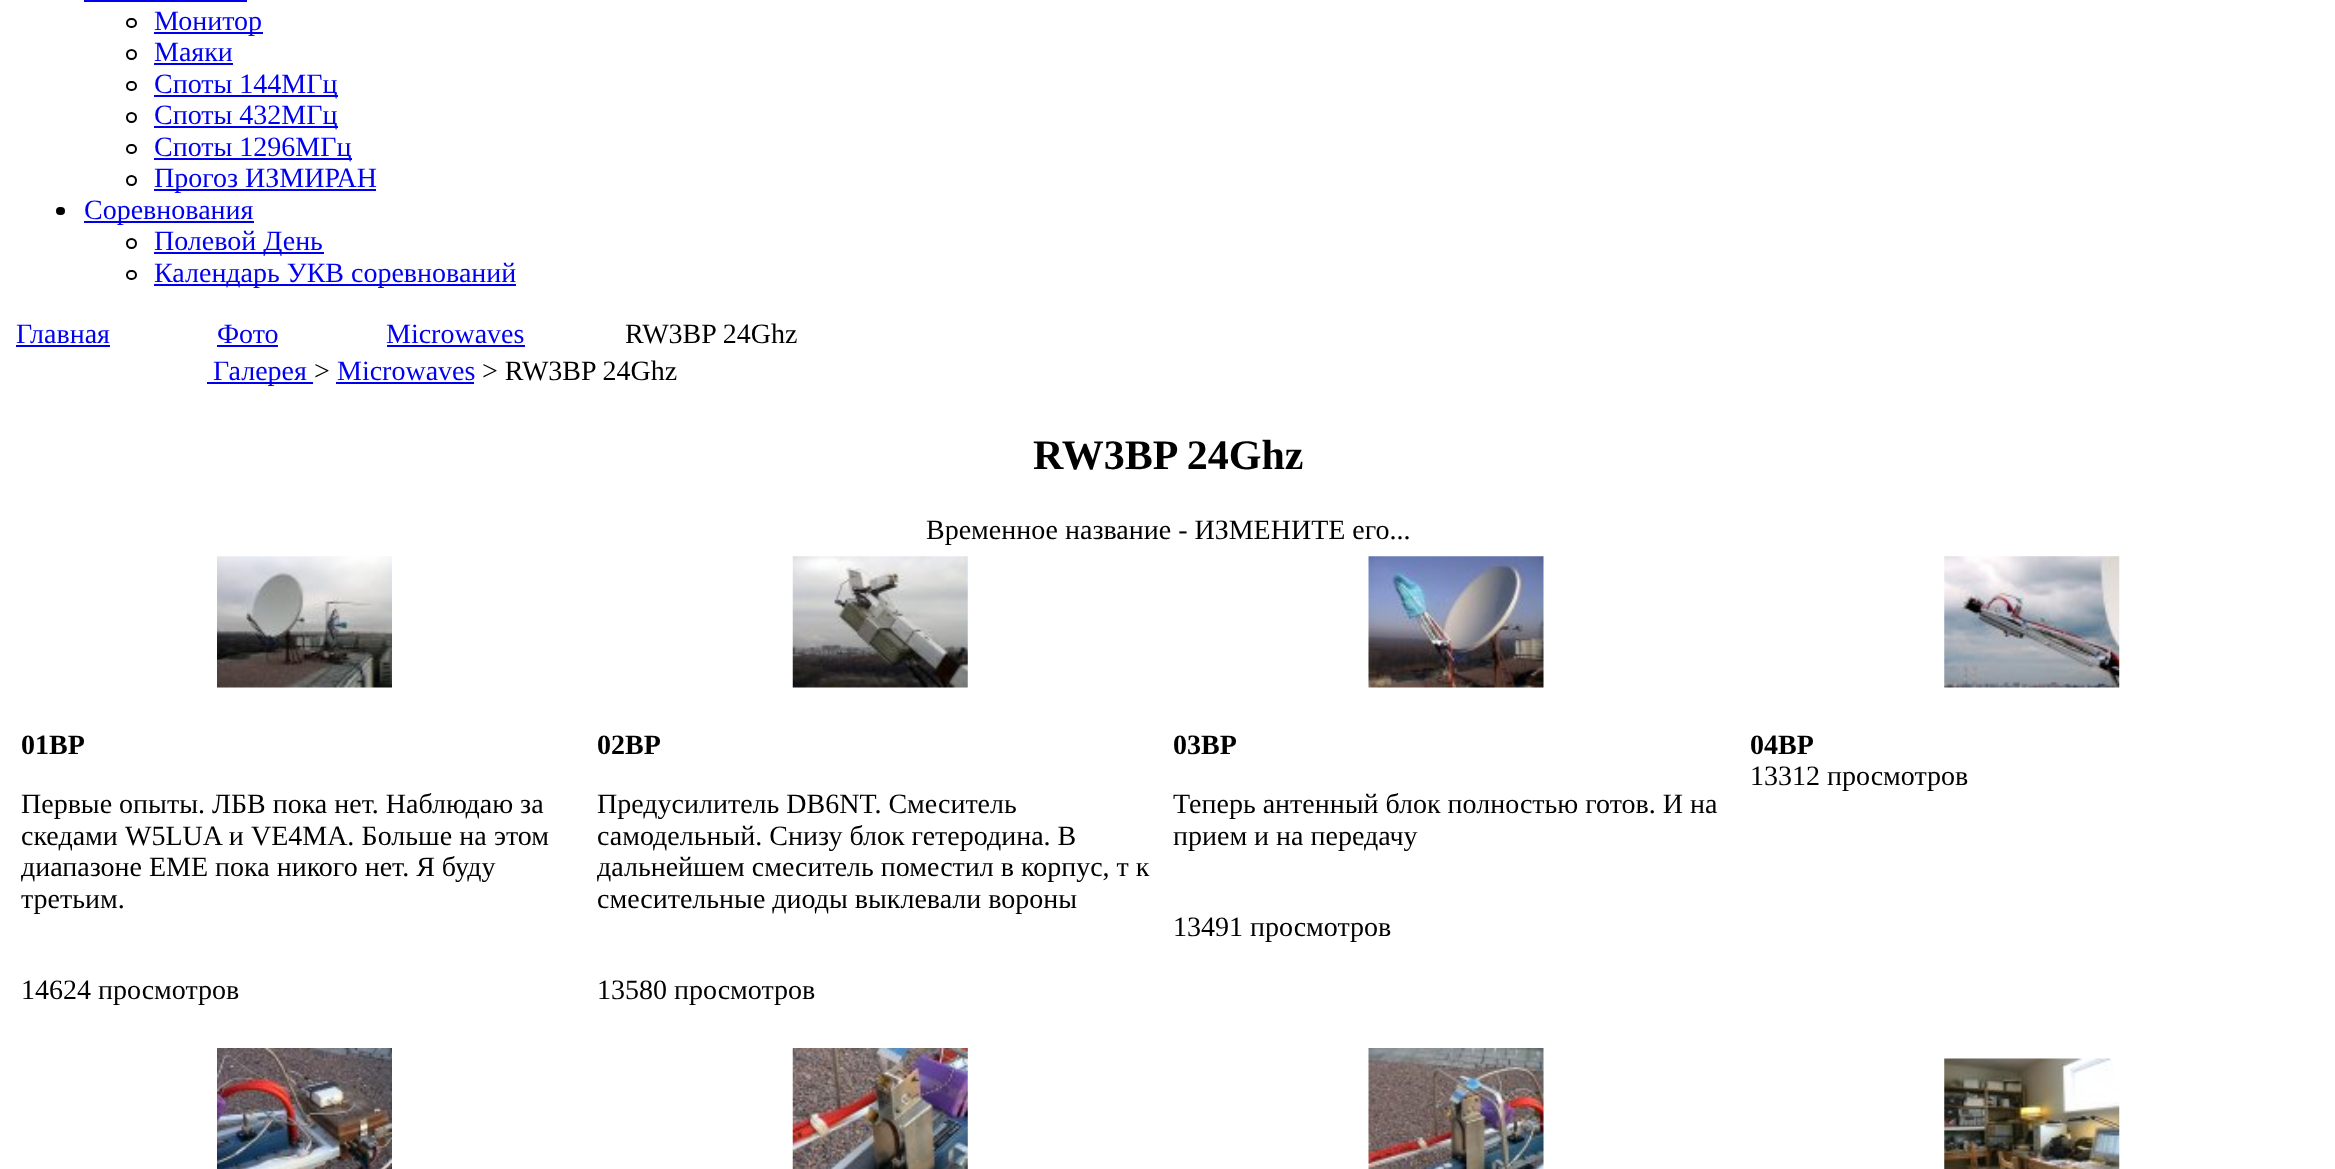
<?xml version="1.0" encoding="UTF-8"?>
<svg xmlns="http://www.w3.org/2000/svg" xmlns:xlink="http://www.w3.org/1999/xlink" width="2335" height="1169">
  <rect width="100%" height="100%" fill="#ffffff" />
  <rect x="84" width="163" height="2" fill="#0000ee" />
  <rect x="127" y="19" width="9" height="8" rx="4" fill="none" stroke="#000000" stroke-width="2" />
  <rect x="154" y="32" width="109" height="2" fill="#0000ee" />
  <circle cx="131.5" cy="54.5" r="4.5" fill="none" stroke="#000000" stroke-width="2" />
  <rect x="154" y="63" width="79" height="2" fill="#0000ee" />
  <rect x="127" y="82" width="9" height="8" rx="4" fill="none" stroke="#000000" stroke-width="2" />
  <rect x="154" y="95" width="184" height="2" fill="#0000ee" />
  <circle cx="131.5" cy="117.5" r="4.5" fill="none" stroke="#000000" stroke-width="2" />
  <rect x="154" y="126" width="184" height="2" fill="#0000ee" />
  <rect x="127" y="145" width="9" height="8" rx="4" fill="none" stroke="#000000" stroke-width="2" />
  <rect x="154" y="158" width="198" height="2" fill="#0000ee" />
  <circle cx="131.5" cy="180.5" r="4.5" fill="none" stroke="#000000" stroke-width="2" />
  <rect x="154" y="189" width="222" height="2" fill="#0000ee" />
  <rect x="56" y="207" width="9" height="8" rx="4" fill="#000000" />
  <rect x="84" y="221" width="170" height="2" fill="#0000ee" />
  <circle cx="131.5" cy="243.5" r="4.5" fill="none" stroke="#000000" stroke-width="2" />
  <rect x="154" y="252" width="170" height="2" fill="#0000ee" />
  <rect x="127" y="271" width="9" height="8" rx="4" fill="none" stroke="#000000" stroke-width="2" />
  <rect x="154" y="284" width="362" height="2" fill="#0000ee" />
  <rect x="16" y="345" width="94" height="2" fill="#0000ee" />
  <rect x="217" y="345" width="61" height="2" fill="#0000ee" />
  <rect x="387" y="345" width="138" height="2" fill="#0000ee" />
  <rect x="207" y="382" width="106" height="2" fill="#0000ee" />
  <rect x="336" y="382" width="138" height="2" fill="#0000ee" />
  <image x="217" y="556" width="175" height="132" xlink:href="image1.png" />
  <image x="792" y="556" width="176" height="132" xlink:href="image2.png" />
  <image x="1368" y="556" width="176" height="132" xlink:href="image3.png" />
  <image x="1944" y="556" width="176" height="132" xlink:href="image4.png" />
  <image x="217" y="1048" width="175" height="121" xlink:href="image5.png" />
  <image x="792" y="1048" width="176" height="121" xlink:href="image6.png" />
  <image x="1368" y="1048" width="176" height="121" xlink:href="image7.png" />
  <image x="1944" y="1058" width="176" height="111" xlink:href="image8.png" />
  <text x="154" y="30" style="font-family: Liberation Serif; font-size: 28px; fill: #0000ee">Монитор</text>
  <text x="154" y="61" style="font-family: Liberation Serif; font-size: 28px; fill: #0000ee">Маяки</text>
  <text x="154" y="93" style="font-family: Liberation Serif; font-size: 28px; fill: #0000ee">Споты 144МГц</text>
  <text x="154" y="124" style="font-family: Liberation Serif; font-size: 28px; fill: #0000ee">Споты 432МГц</text>
  <text x="154" y="156" style="font-family: Liberation Serif; font-size: 28px; fill: #0000ee">Споты 1296МГц</text>
  <text x="154" y="187" style="font-family: Liberation Serif; font-size: 28px; fill: #0000ee">Прогоз ИЗМИРАН</text>
  <text x="84" y="219" style="font-family: Liberation Serif; font-size: 28px; fill: #0000ee">Соревнования</text>
  <text x="154" y="250" style="font-family: Liberation Serif; font-size: 28px; fill: #0000ee">Полевой День</text>
  <text x="154" y="282" style="font-family: Liberation Serif; font-size: 28px; fill: #0000ee">Календарь УКВ соревнований</text>
  <text x="16" y="343" style="font-family: Liberation Serif; font-size: 28px; fill: #0000ee">Главная</text>
  <text x="217" y="343" style="font-family: Liberation Serif; font-size: 28px; fill: #0000ee">Фото</text>
  <text x="386" y="343" style="font-family: Liberation Serif; font-size: 28px; fill: #0000ee">Microwaves</text>
  <text x="625" y="343" style="font-family: Liberation Serif; font-size: 28px; fill: #000000">RW3BP 24Ghz</text>
  <text x="213" y="380" style="font-family: Liberation Serif; font-size: 28px; fill: #0000ee">Галерея</text>
  <text x="314" y="380" style="font-family: Liberation Serif; font-size: 28px; fill: #000000">&gt;</text>
  <text x="337" y="380" style="font-family: Liberation Serif; font-size: 28px; fill: #0000ee">Microwaves</text>
  <text x="482" y="380" style="font-family: Liberation Serif; font-size: 28px; fill: #000000">&gt; RW3BP 24Ghz</text>
  <text x="1033" y="469" style="font-family: Liberation Serif; font-size: 42px; font-weight: bold; fill: #000000">RW3BP 24Ghz</text>
  <text x="926" y="539" style="font-family: Liberation Serif; font-size: 28px; fill: #000000">Временное название - ИЗМЕНИТЕ его...</text>
  <text x="21" y="754" style="font-family: Liberation Serif; font-size: 28px; font-weight: bold; fill: #000000">01BP</text>
  <text x="21" y="813" style="font-family: Liberation Serif; font-size: 28px; fill: #000000">Первые опыты. ЛБВ пока нет. Наблюдаю за</text>
  <text x="21" y="845" word-spacing="0.25" style="font-family: Liberation Serif; font-size: 28px; fill: #000000">скедами W5LUA и VE4MA. Больше на этом</text>
  <text x="21" y="876" style="font-family: Liberation Serif; font-size: 28px; fill: #000000">диапазоне ЕМЕ пока никого нет. Я буду</text>
  <text x="21" y="908" style="font-family: Liberation Serif; font-size: 28px; fill: #000000">третьим.</text>
  <text x="21" y="999" style="font-family: Liberation Serif; font-size: 28px; fill: #000000">14624 просмотров</text>
  <text x="597" y="754" style="font-family: Liberation Serif; font-size: 28px; font-weight: bold; fill: #000000">02BP</text>
  <text x="597" y="813" style="font-family: Liberation Serif; font-size: 28px; fill: #000000">Предусилитель DB6NT. Смеситель</text>
  <text x="597" y="845" style="font-family: Liberation Serif; font-size: 28px; fill: #000000">самодельный. Снизу блок гетеродина. В</text>
  <text x="597" y="876" style="font-family: Liberation Serif; font-size: 28px; fill: #000000">дальнейшем смеситель поместил в корпус, т к</text>
  <text x="597" y="908" style="font-family: Liberation Serif; font-size: 28px; fill: #000000">смесительные диоды выклевали вороны</text>
  <text x="597" y="999" style="font-family: Liberation Serif; font-size: 28px; fill: #000000">13580 просмотров</text>
  <text x="1173" y="754" style="font-family: Liberation Serif; font-size: 28px; font-weight: bold; fill: #000000">03BP</text>
  <text x="1173" y="813" style="font-family: Liberation Serif; font-size: 28px; fill: #000000">Теперь антенный блок полностью готов. И на</text>
  <text x="1173" y="845" style="font-family: Liberation Serif; font-size: 28px; fill: #000000">прием и на передачу</text>
  <text x="1173" y="936" style="font-family: Liberation Serif; font-size: 28px; fill: #000000">13491 просмотров</text>
  <text x="1750" y="754" style="font-family: Liberation Serif; font-size: 28px; font-weight: bold; fill: #000000">04BP</text>
  <text x="1750" y="785" style="font-family: Liberation Serif; font-size: 28px; fill: #000000">13312 просмотров</text>
</svg>
